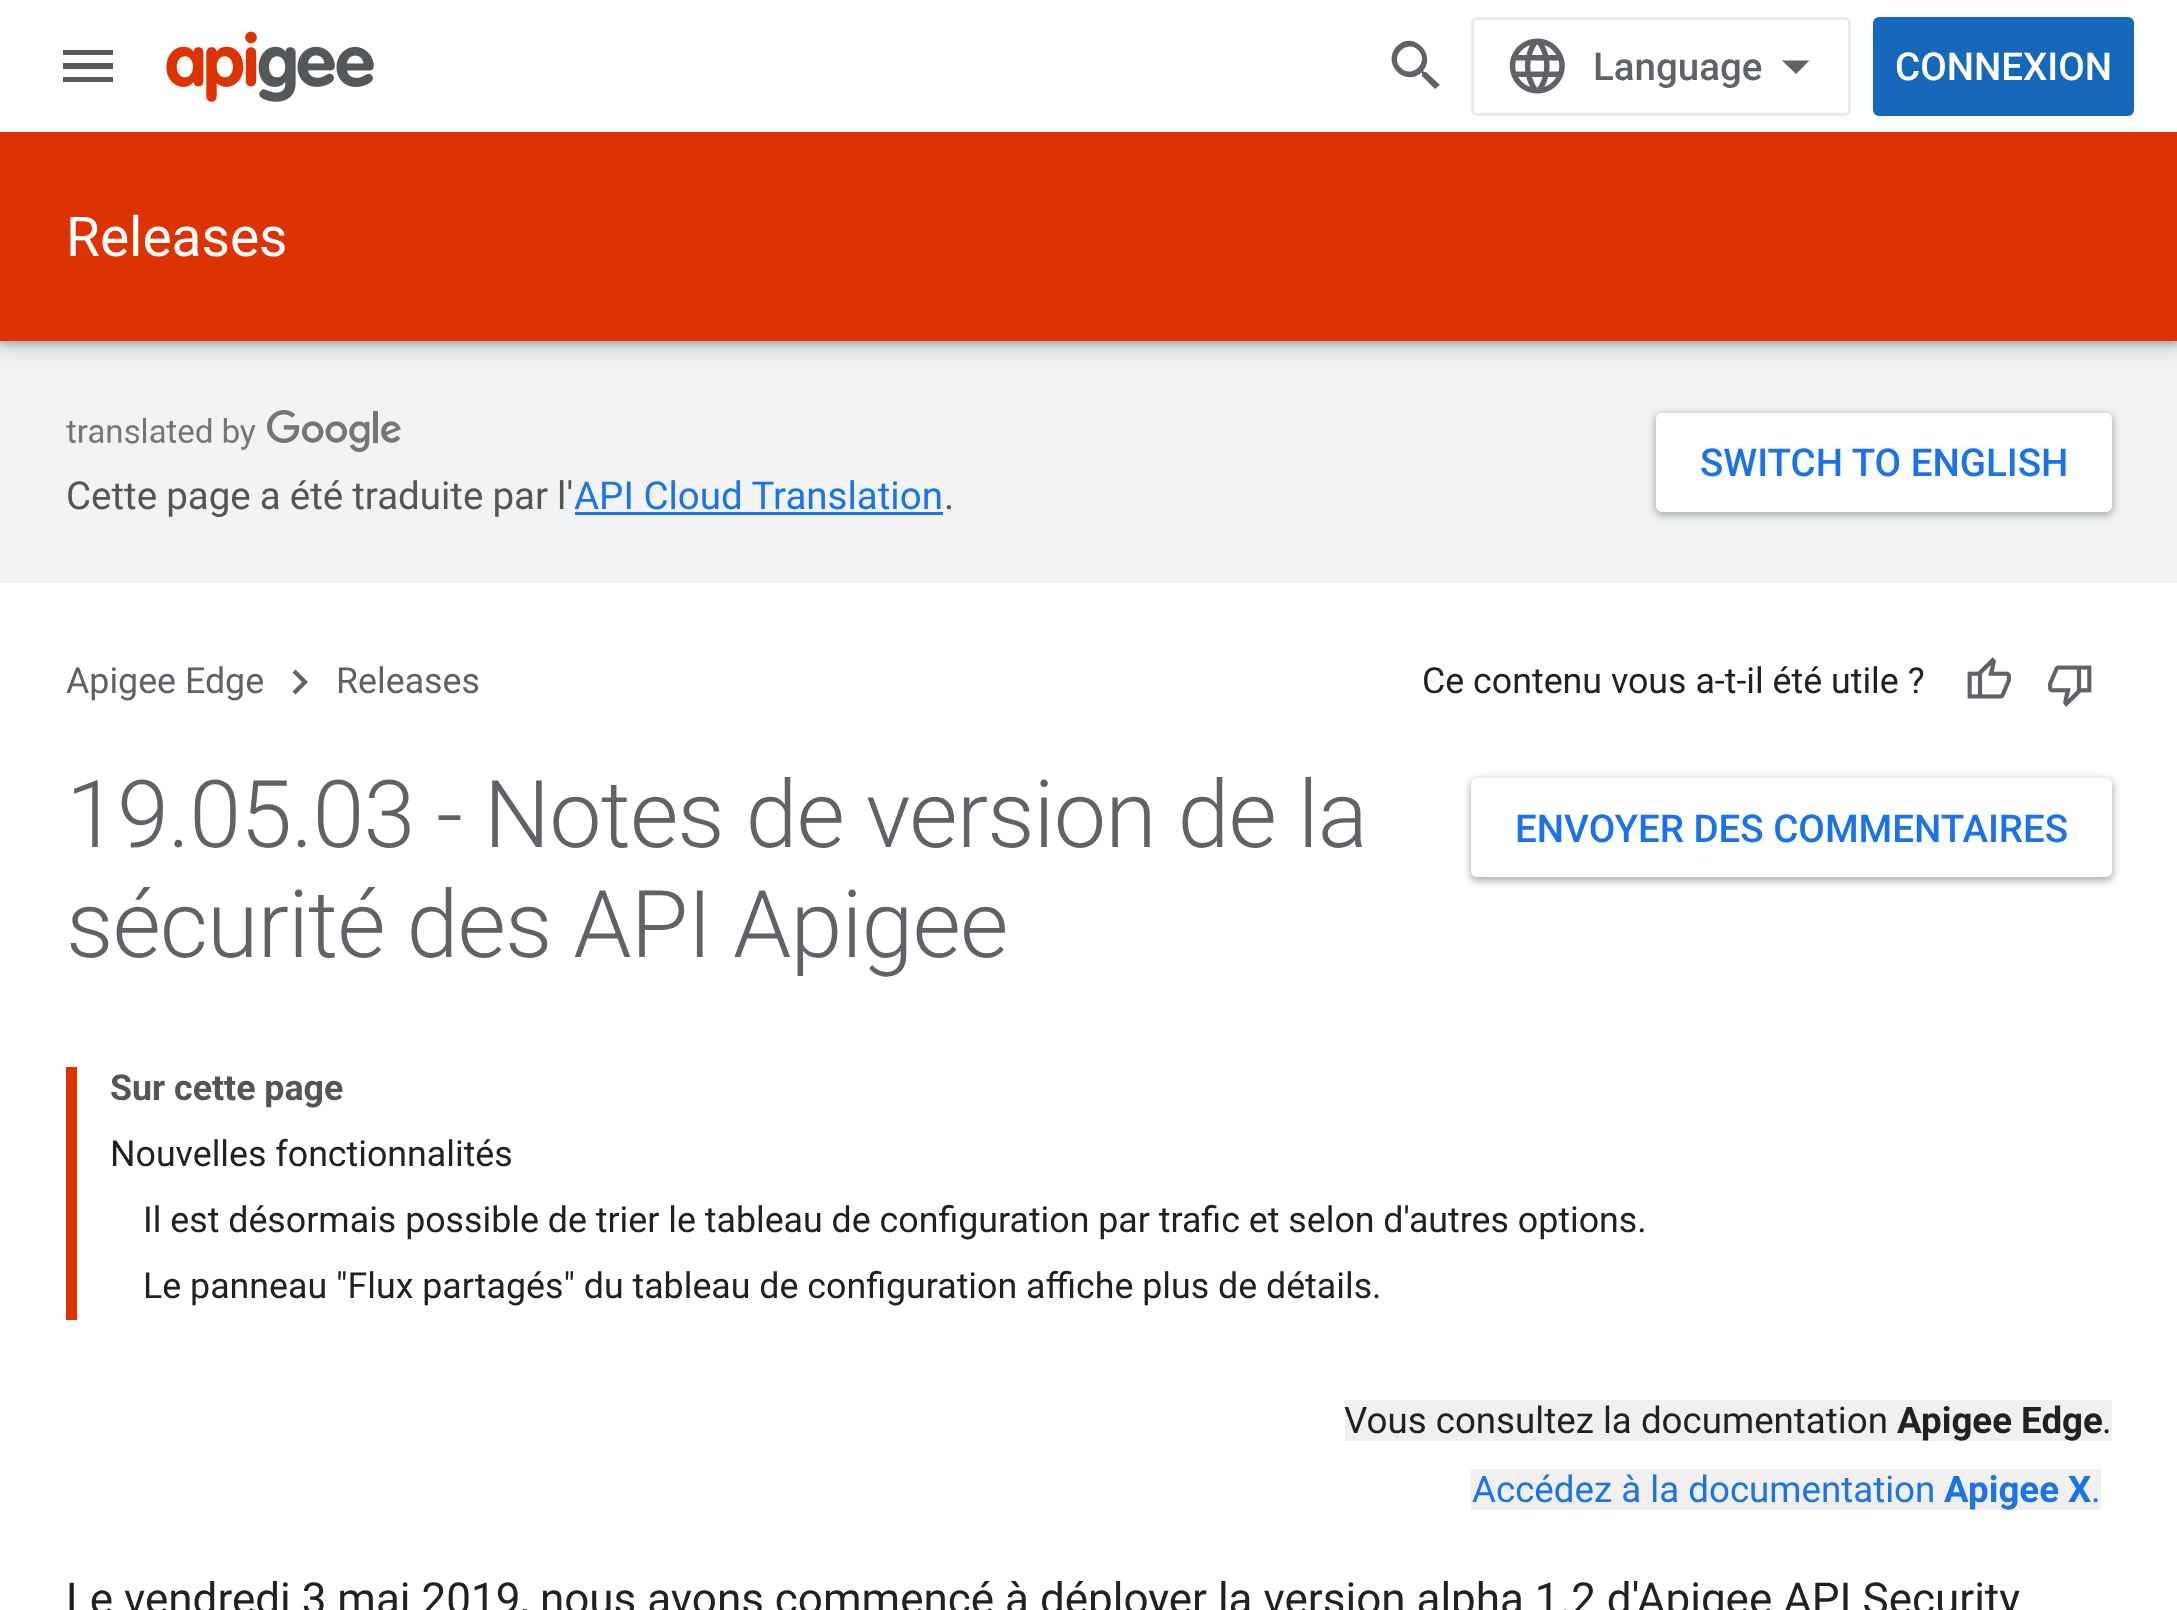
<?xml version="1.0" encoding="UTF-8"?>
<svg xmlns="http://www.w3.org/2000/svg" xmlns:xlink="http://www.w3.org/1999/xlink" width="2177" height="1610">
  <rect width="100%" height="100%" fill="#ffffff" />
  <rect y="341" width="2177" height="242" fill="#f1f3f4" />
  <rect x="-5" y="132" width="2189" height="220" fill="#3c4043" fill-opacity="0.15" filter="blur(8px)" />
  <rect y="135" width="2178" height="209" fill="#3c4043" fill-opacity="0.3" filter="blur(3px)" />
  <rect y="121" width="2177" height="11" fill="#ffffff" />
  <path d="M 63 50 h 50 v 5 h -50 z m 0 19 v -6 h 50 v 6 z m 0 13 v -5 h 50 v 5 z" fill="#595959" />
  <image x="166" y="31" width="208" height="71" xlink:href="image1.png" />
  <path d="M 1401 68 c 11 11 29 -6 17 -18 c -11 -11 -29 6 -17 18 z m 25 4 l 14 13 l -5 4 l -13 -13 v -3 h -1 c -17 14 -40 -10 -24 -27 c 16 -16 40 8 26 25 l 1 1 z" fill="#5f6368" />
  <rect x="1472.5" y="18.5" width="377" height="96" rx="4.5" fill="none" stroke="#e8eaed" stroke-width="3" />
  <image x="1509" y="38" width="56" height="56" xlink:href="image2.png" />
  <path d="M 1796 74 l -14 -13.5 h 27.5 z" fill="#5f6368" />
  <rect x="1873" y="17" width="261" height="99" rx="6" fill="#1568ba" />
  <rect y="132" width="2177" height="209" fill="#dd3303" />
  <rect x="1653" y="413" width="462" height="104" rx="8" fill="#3c4043" fill-opacity="0.15" filter="blur(4px)" />
  <rect x="1656" y="415" width="456" height="99" rx="6" fill="#3c4043" fill-opacity="0.3" filter="blur(3px)" />
  <rect x="1656" y="413" width="456" height="99" rx="6" fill="#ffffff" />
  <image x="66" y="410" width="335" height="43" xlink:href="image3.png" />
  <rect x="575" y="512" width="368" height="3" fill="#1a73e8" />
  <path d="M 295.5 669.5 l 12.5 12.5 l -12.5 12.5 l -3 -3 l 9.5 -9.5 l -9.5 -9.5 z" fill="#5f6368" />
  <image x="1967" y="657" width="44" height="42" xlink:href="image4.png" />
  <image x="2048" y="665" width="44" height="42" xlink:href="image5.png" />
  <rect x="1469" y="778" width="646" height="105" rx="8" fill="#3c4043" fill-opacity="0.15" filter="blur(4px)" />
  <rect x="1471" y="781" width="641" height="99" rx="6" fill="#3c4043" fill-opacity="0.3" filter="blur(3px)" />
  <rect x="1471" y="778" width="641" height="99" rx="6" fill="#ffffff" />
  <rect x="66" y="1067" width="11" height="253" fill="#dd3303" />
  <rect x="1345" y="1400" width="767" height="41" fill="#f0f0f0" />
  <rect x="1471" y="1469" width="630" height="41" fill="#f0f0f0" />
  <text x="1593" y="80" style="font-family: Roboto; font-size: 38.5px; font-weight: 500; fill: #5f6368">Language</text>
  <text x="1895" y="80" style="font-family: Roboto; font-size: 38.5px; font-weight: 500; fill: #ffffff">CONNEXION</text>
  <text x="66" y="256" style="font-family: Roboto; font-size: 55px; fill: #ffffff">Releases</text>
  <text x="1700" y="476" style="font-family: Roboto; font-size: 38.5px; font-weight: 500; fill: #1a73e8">SWITCH TO ENGLISH</text>
  <text x="66" y="509" word-spacing="-0.5" style="font-family: Roboto; font-size: 38.5px; fill: #545555">Cette page a été traduite par l'</text>
  <text x="574" y="509" style="font-family: Roboto; font-size: 38.5px; fill: #1a73e8">API Cloud Translation</text>
  <text x="944" y="509" style="font-family: Roboto; font-size: 38.5px; fill: #545555">.</text>
  <text x="66" y="693" style="font-family: Roboto; font-size: 35.75px; fill: #5f6368">Apigee Edge</text>
  <text x="336" y="693" style="font-family: Roboto; font-size: 35.75px; fill: #5f6368">Releases</text>
  <text x="1422" y="693" style="font-family: Roboto; font-size: 35.75px; fill: #202124">Ce contenu vous a-t-il été utile ?</text>
  <text x="66" y="847" style="font-family: Roboto; font-size: 93.5px; font-weight: 300; letter-spacing: -0.95px; fill: #5f6368">19.05.03 - Notes de version de la</text>
  <text x="1515" y="842" style="font-family: Roboto; font-size: 38.5px; font-weight: 500; fill: #1a73e8">ENVOYER DES COMMENTAIRES</text>
  <text x="66" y="957" style="font-family: Roboto; font-size: 93.5px; font-weight: 300; letter-spacing: -0.95px; fill: #5f6368">sécurité des API Apigee</text>
  <text x="110" y="1100" style="font-family: Roboto; font-size: 35.75px; font-weight: bold; fill: #545555">Sur cette page</text>
  <text x="110" y="1166" style="font-family: Roboto; font-size: 35.75px; fill: #202124">Nouvelles fonctionnalités</text>
  <text x="143" y="1232" style="font-family: Roboto; font-size: 35.75px; fill: #202124">Il est désormais possible de trier le tableau de configuration par trafic et selon d'autres options.</text>
  <text x="143" y="1298" style="font-family: Roboto; font-size: 35.75px; fill: #202124">Le panneau "Flux partagés" du tableau de configuration affiche plus de détails.</text>
  <text x="1344" y="1433" style="font-family: Roboto; font-size: 36.7px; fill: #202124">Vous consultez la documentation</text>
  <text x="1897" y="1433" style="font-family: Roboto; font-size: 36.7px; font-weight: bold; fill: #202124">Apigee Edge</text>
  <text x="2102" y="1433" style="font-family: Roboto; font-size: 36.7px; fill: #202124">.</text>
  <text x="1472" y="1502" style="font-family: Roboto; font-size: 36.7px; fill: #1a73e8">Accédez à la documentation</text>
  <text x="1944" y="1502" style="font-family: Roboto; font-size: 36.7px; font-weight: bold; fill: #1a73e8">Apigee X</text>
  <text x="2091" y="1502" style="font-family: Roboto; font-size: 36.7px; fill: #1a73e8">.</text>
  <text x="66" y="1614" style="font-family: Roboto; font-size: 44px; fill: #202124">Le vendredi 3 mai 2019, nous avons commencé à déployer la version alpha 1.2 d'Apigee API Security</text>
</svg>
